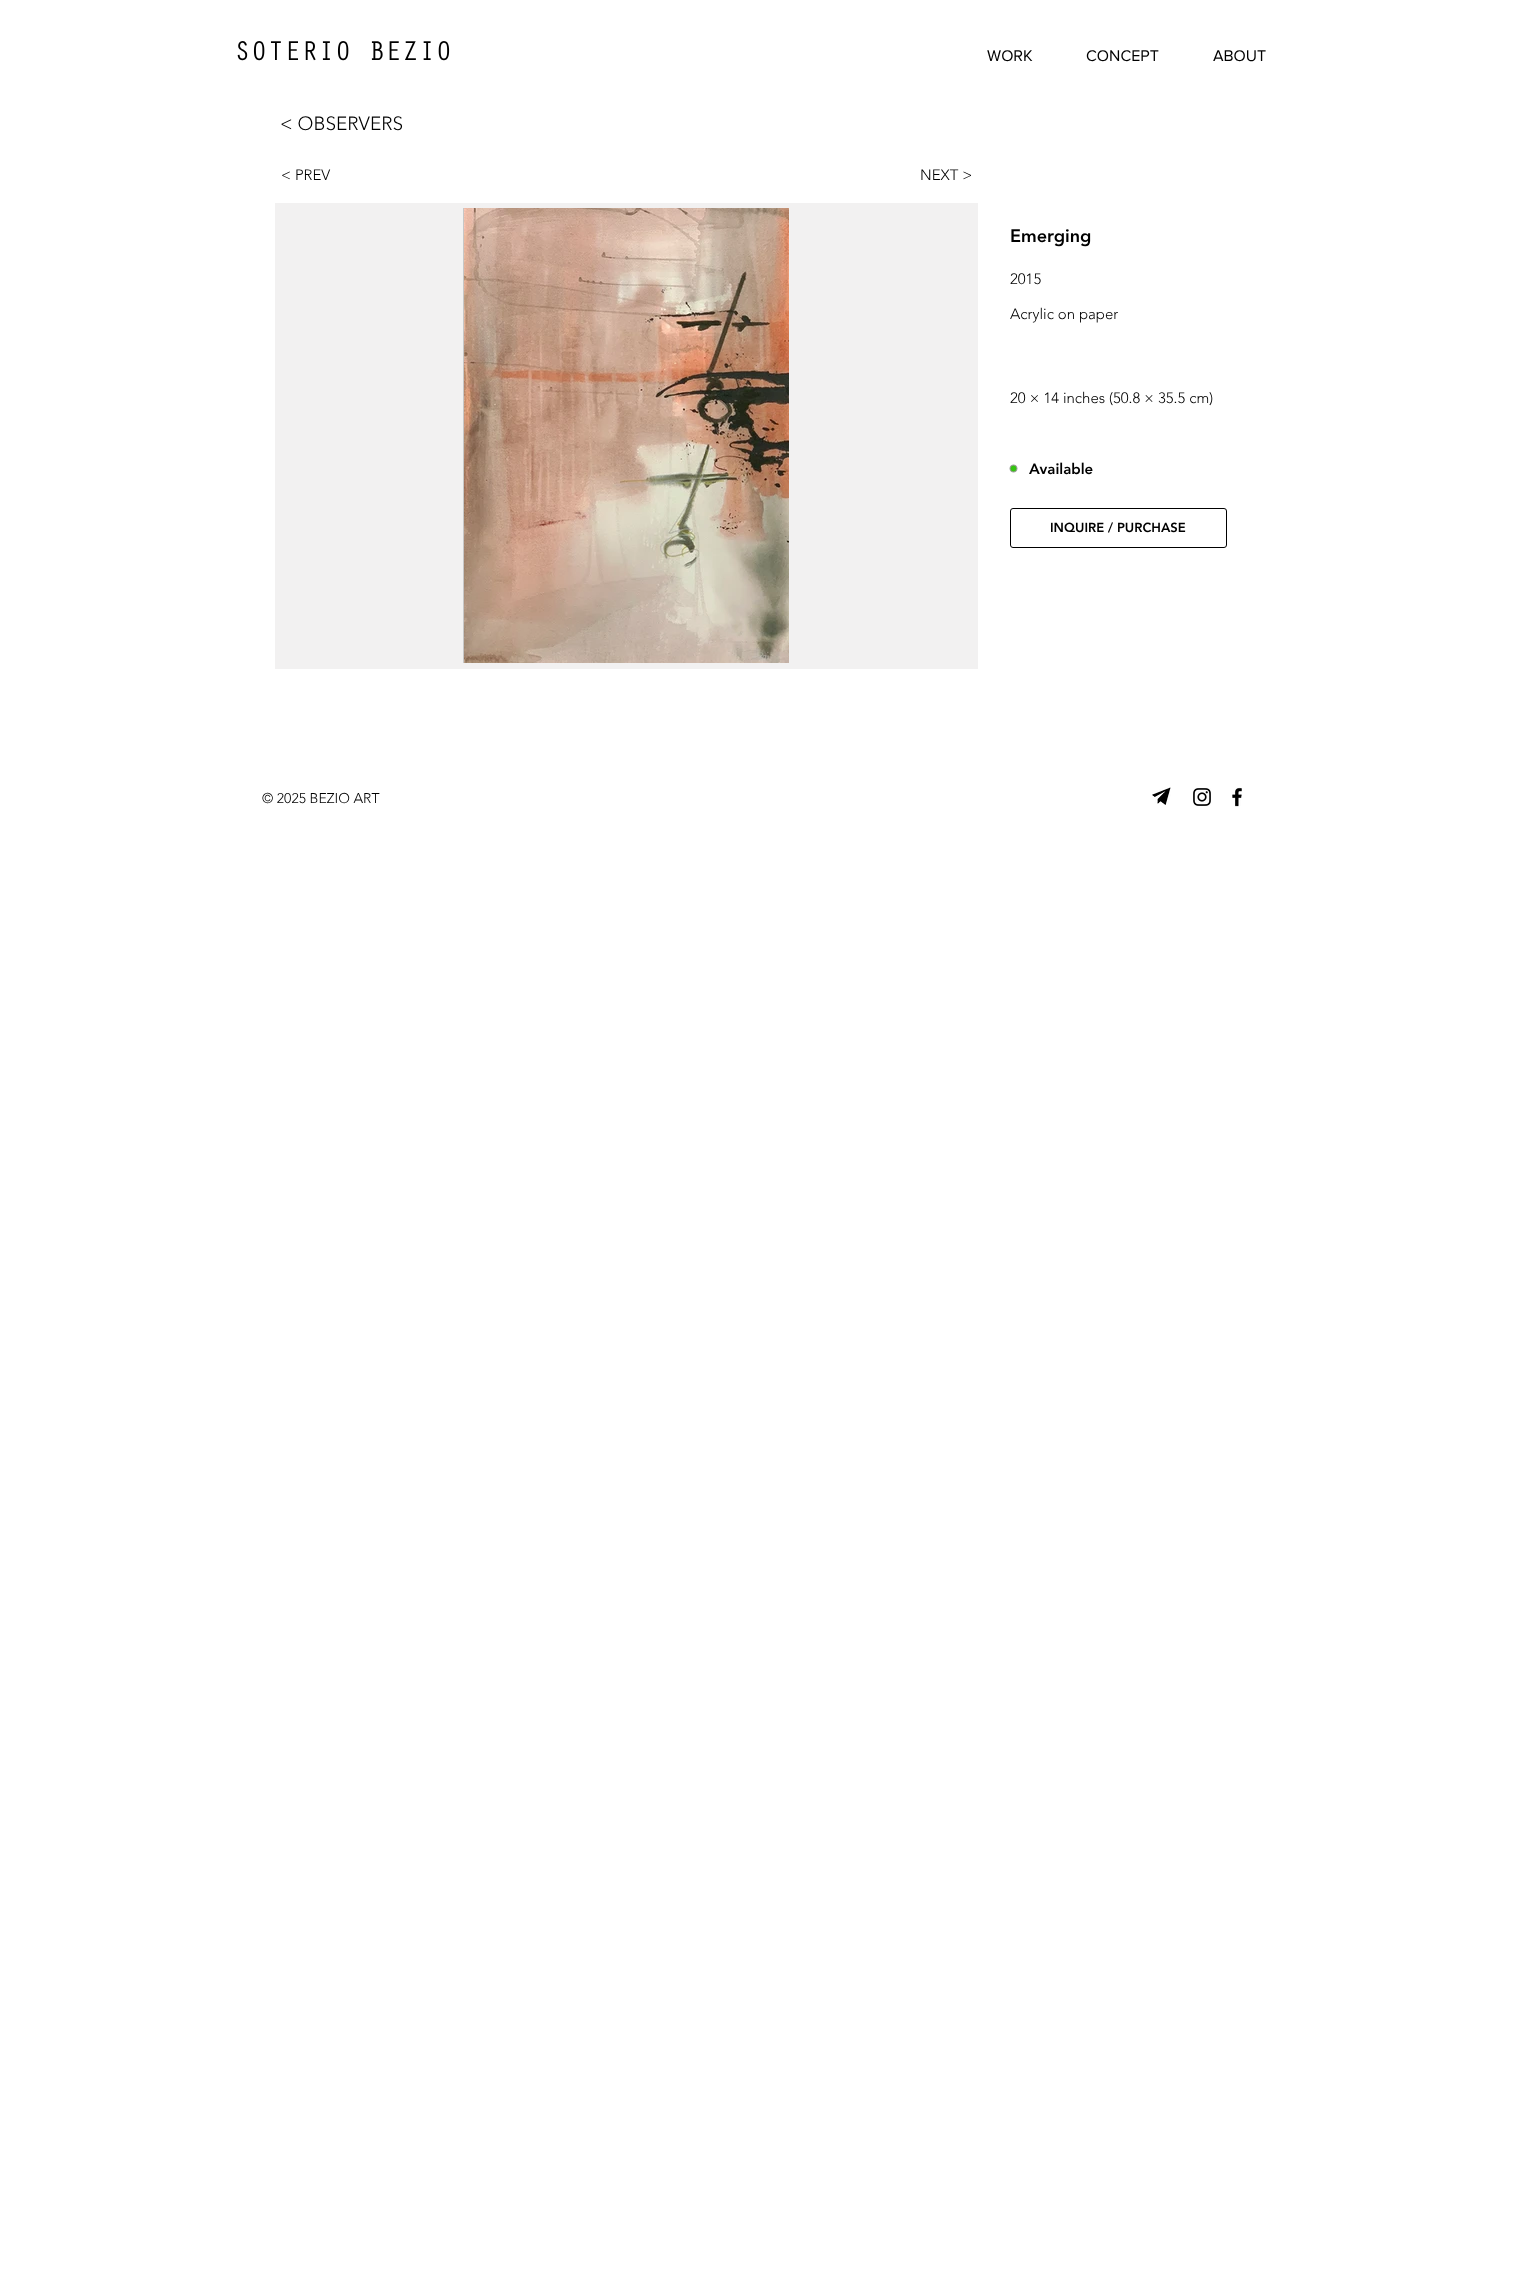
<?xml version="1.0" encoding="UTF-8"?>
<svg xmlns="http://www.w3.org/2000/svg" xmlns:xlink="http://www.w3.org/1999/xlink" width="1519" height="2281">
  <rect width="100%" height="100%" fill="#ffffff" />
  <rect x="275" y="203" width="703" height="466" fill="#f2f1f1" />
  <rect x="463" y="208" width="1" height="455" fill="#c7c7c7" />
  <image x="464" y="208" width="325" height="455" xlink:href="image1.png" />
  <image x="1009" y="464" width="9" height="9" xlink:href="image2.png" />
  <rect x="1010.5" y="508.5" width="216" height="39" rx="2.5" fill="none" stroke="#000000" />
  <image x="1152" y="787" width="19" height="18" xlink:href="image3.png" />
  <image x="1193" y="788" width="18" height="18" xlink:href="image4.png" />
  <image x="1232" y="787" width="10" height="20" xlink:href="image5.png" />
  <text x="234" y="60" style="font-family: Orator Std; font-size: 28px; fill: #000000">SOTERIO BEZIO</text>
  <text x="987" y="61" style="font-family: 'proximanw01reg'; font-size: 16px; fill: #000000">WORK</text>
  <text x="1086" y="61" style="font-family: 'proximanw01reg'; font-size: 16px; fill: #000000">CONCEPT</text>
  <text x="1213" y="61" style="font-family: 'proximanw01reg'; font-size: 16px; fill: #000000">ABOUT</text>
  <text x="280" y="130" style="font-family: 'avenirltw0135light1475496'; font-size: 19px; font-weight: 300; fill: #000000">&lt; OBSERVERS</text>
  <text x="281" y="180" style="font-family: 'avenirltw0135light1475496'; font-size: 15px; font-weight: 300; fill: #000000">&lt; PREV</text>
  <text x="920" y="180" style="font-family: 'avenirltw0135light1475496'; font-size: 15px; font-weight: 300; fill: #000000">NEXT &gt;</text>
  <text x="1010" y="242" style="font-family: 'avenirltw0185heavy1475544'; font-size: 18px; font-weight: 900; fill: #000000">Emerging</text>
  <text x="1010" y="284" style="font-family: 'avenirltw0135light1475496'; font-size: 15px; font-weight: 300; fill: #000000">2015</text>
  <text x="1010" y="319" style="font-family: 'avenirltw0135light1475496'; font-size: 15px; font-weight: 300; fill: #000000">Acrylic on paper</text>
  <text x="1010" y="403" style="font-family: 'avenirltw0135light1475496'; font-size: 15px; font-weight: 300; fill: #000000">20 × 14 inches (50.8 × 35.5 cm)</text>
  <text x="1029" y="474" style="font-family: 'avenirltw0185heavy1475544'; font-size: 15px; font-weight: 900; fill: #000000">Available</text>
  <text x="1050" y="532" style="font-family: 'avenirltw0185heavy1475544'; font-size: 13px; font-weight: 900; fill: #000000">INQUIRE / PURCHASE</text>
  <text x="262" y="803" style="font-family: 'avenirltw0135light1475496'; font-size: 14px; font-weight: 300; fill: #000000">© 2025 BEZIO ART</text>
</svg>
